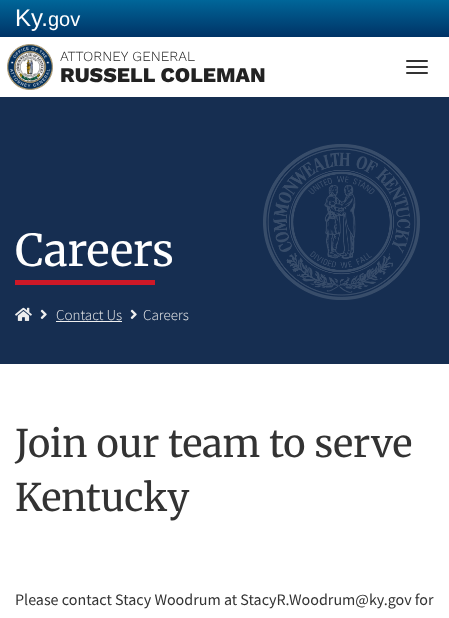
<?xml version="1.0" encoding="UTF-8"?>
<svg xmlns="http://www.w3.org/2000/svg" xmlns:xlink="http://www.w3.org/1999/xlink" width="449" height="618">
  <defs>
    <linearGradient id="g1" gradientUnits="userSpaceOnUse" x1="225" y1="0" x2="225" y2="37"><stop offset="0" stop-color="#006699" /><stop offset="1" stop-color="#003366" /></linearGradient>
  </defs>
  <rect width="100%" height="100%" fill="#ffffff" />
  <rect width="449" height="37" fill="url(#g1)" />
  <image x="7" y="44" width="46" height="46" xlink:href="image1.png" />
  <rect x="406" y="60" width="22" height="2" rx="1" fill="#333333" />
  <rect x="406" y="66" width="22" height="2" rx="1" fill="#333333" />
  <rect x="406" y="72" width="22" height="2" rx="1" fill="#333333" />
  <rect y="97" width="449" height="267" fill="#162e51" />
  <rect x="15" y="280" width="140" height="5" fill="#cd1827" />
  <image x="15" y="307" width="17" height="14" xlink:href="image2.png" />
  <image x="40" y="309" width="7" height="10" xlink:href="image3.png" />
  <rect x="56" y="321" width="66" height="1" fill="#eeeeee" />
  <image x="130" y="309" width="7" height="10" xlink:href="image3.png" />
  <image x="263" y="144" width="157" height="156" xlink:href="image4.png" />
  <text x="15" y="26" style="font-family: Liberation Sans; font-size: 24px; fill: #ffffff">Ky.</text>
  <text x="48" y="26" style="font-family: Liberation Sans; font-size: 20px; fill: #ffffff">gov</text>
  <text x="60" y="61" style="font-family: Work Sans; font-size: 14px; font-weight: 300; fill: #222222">ATTORNEY GENERAL</text>
  <text x="60" y="82" style="font-family: Work Sans; font-size: 21px; font-weight: 800; fill: #222222">RUSSELL COLEMAN</text>
  <text x="15" y="266" style="font-family: Merriweather; font-size: 44px; fill: #ffffff">Careers</text>
  <text x="56" y="320" style="font-family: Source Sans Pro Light; font-size: 15px; font-weight: 300; fill: #eeeeee">Contact Us</text>
  <text x="143" y="320" style="font-family: Source Sans Pro Light; font-size: 15px; font-weight: 300; fill: #eeeeee">Careers</text>
  <text x="15" y="457" style="font-family: Merriweather; font-size: 38px; fill: #333333">Join our team to serve</text>
  <text x="15" y="511" style="font-family: Merriweather; font-size: 38px; fill: #333333">Kentucky</text>
  <text x="15" y="605" style="font-family: Source Sans Pro; font-size: 16px; fill: #333333">Please contact Stacy Woodrum at StacyR.Woodrum@ky.gov for</text>
</svg>
